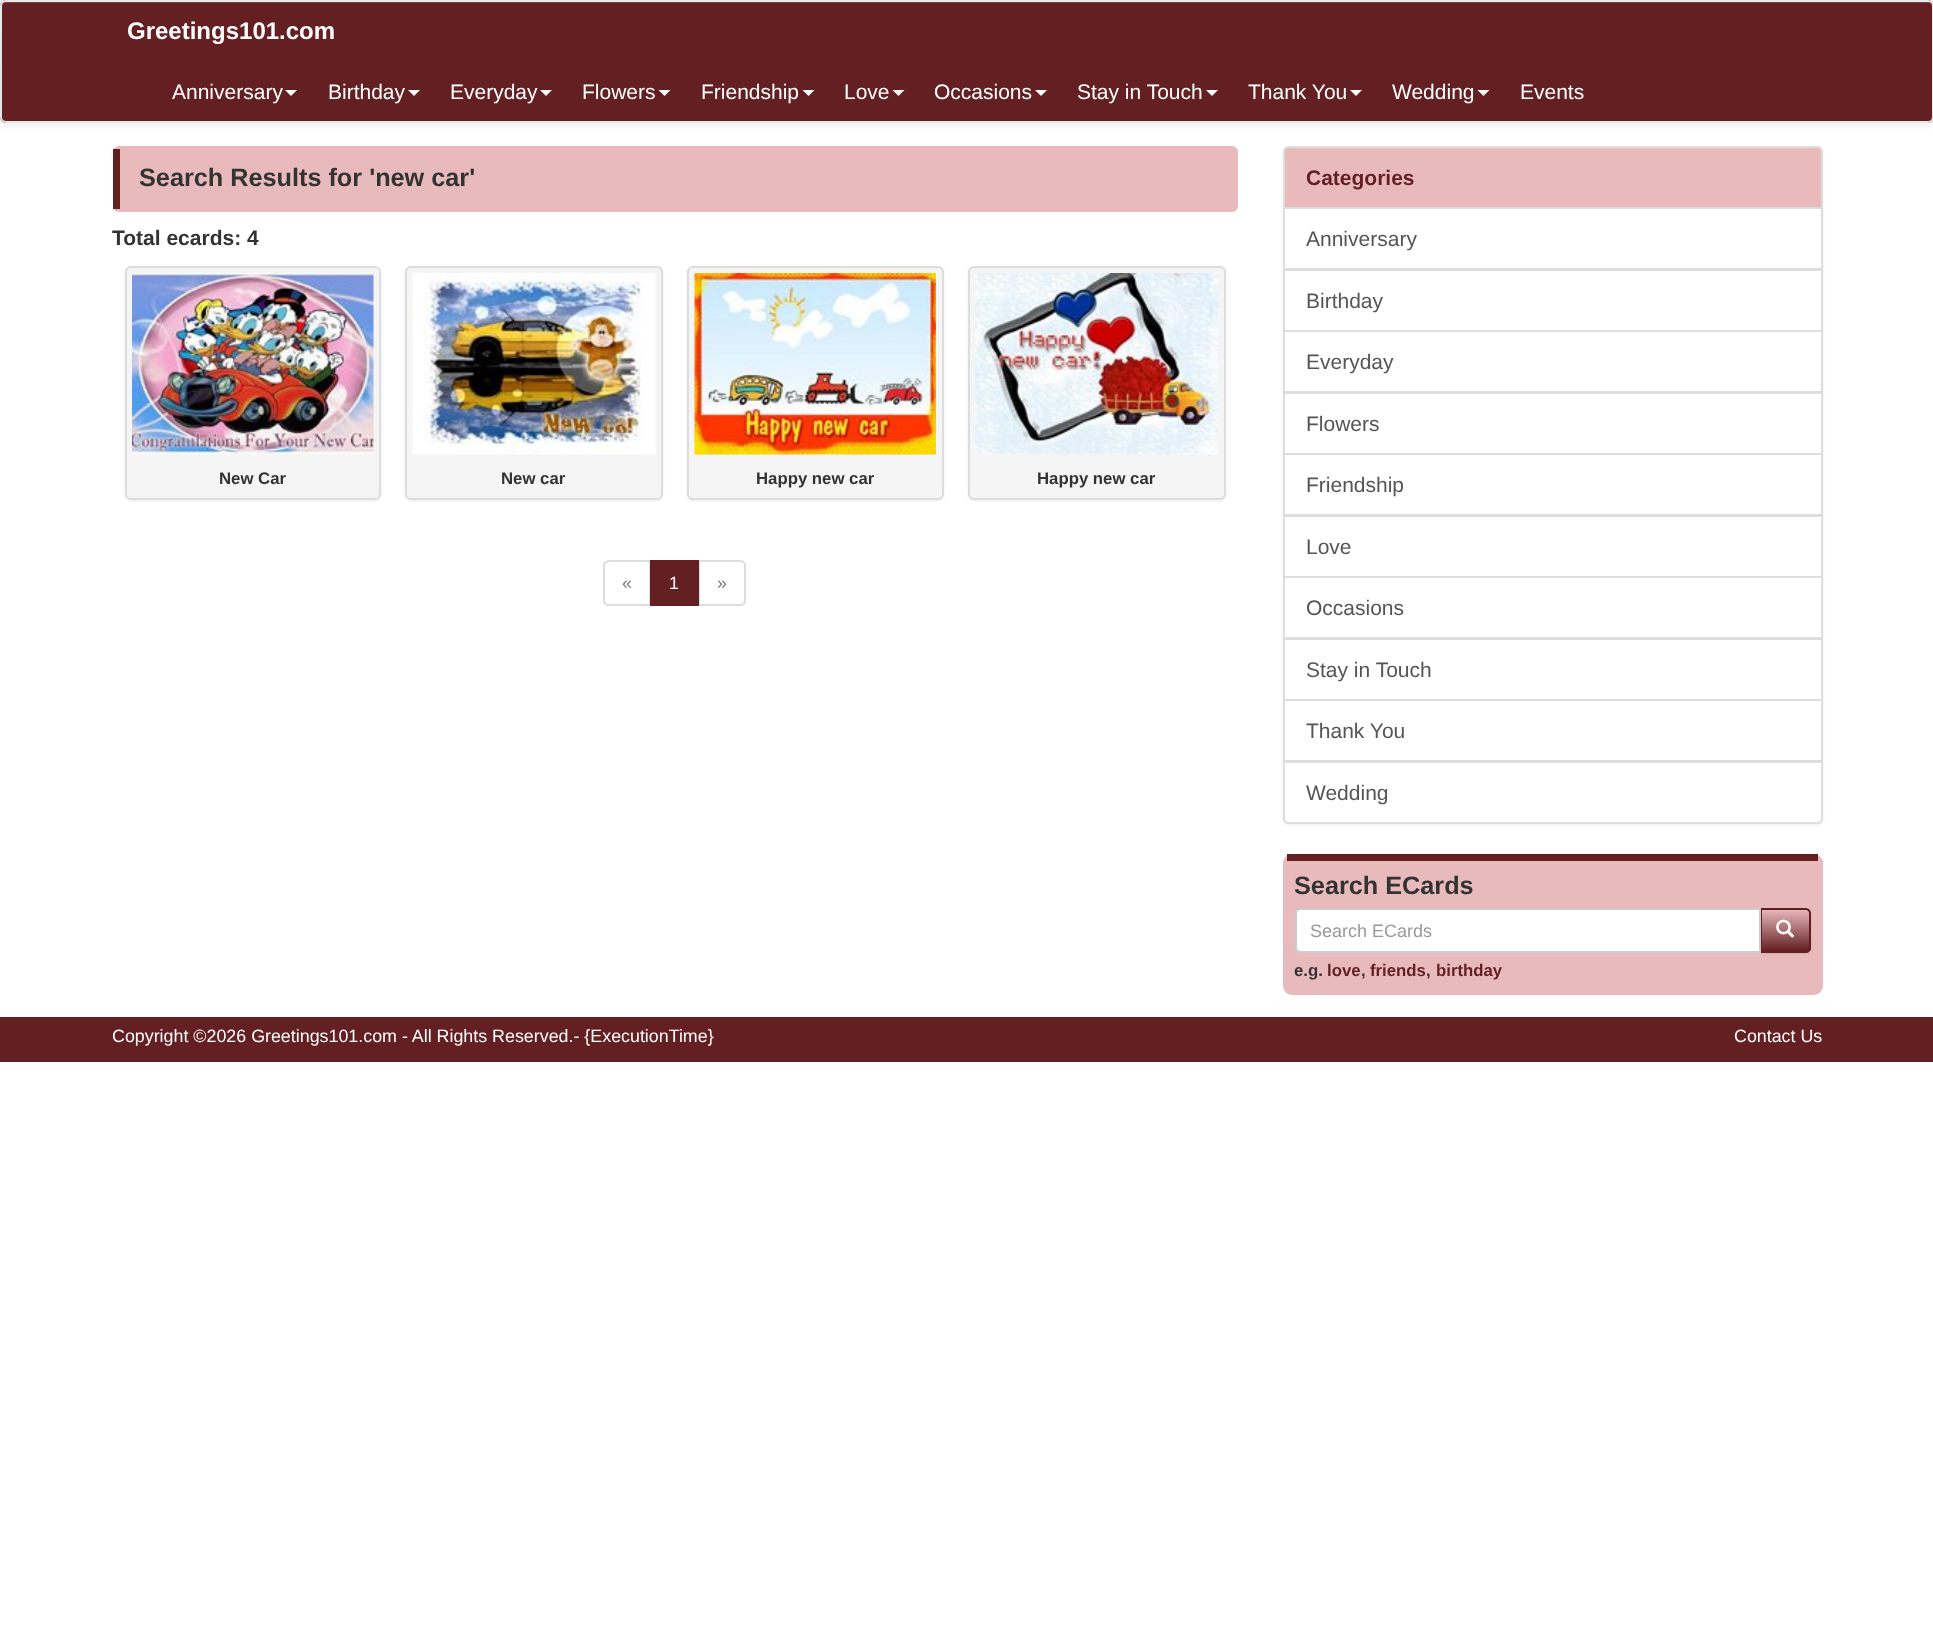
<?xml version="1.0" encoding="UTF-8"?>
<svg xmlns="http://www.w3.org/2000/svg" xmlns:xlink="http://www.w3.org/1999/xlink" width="1933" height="1643">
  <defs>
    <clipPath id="clip1"><path d="M 1760 908 h 46 c 3 0 5 2 5 5 v 35 c 0 3 -2 5 -5 5 h -46 z" /></clipPath>
    <linearGradient id="g1" gradientUnits="userSpaceOnUse" x1="1785" y1="909" x2="1785" y2="951"><stop offset="0" stop-color="#e9babc" /><stop offset="1" stop-color="#641f22" /></linearGradient>
  </defs>
  <rect width="100%" height="100%" fill="#ffffff" />
  <rect y="2" width="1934" height="123" rx="6" fill="#000000" fill-opacity="0.07" filter="blur(4px)" />
  <rect width="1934" height="123" rx="6" fill="#641f22" />
  <path d="M 6 3 h 1922 c 2 0 4 2 4 5 v -1 c 0 -3 -2 -5 -5 -5 h -1920 c -3 0 -5 2 -5 5 v 1 c 0 -3 2 -5 4 -5 z" fill="#7b4143" />
  <rect x="1" y="1" width="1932" height="121" rx="5" fill="none" stroke="#e7e7e7" stroke-width="2" />
  <path d="M 285 90 h 12 l -6 6 z" fill="#ffffff" />
  <path d="M 408 90 h 12 l -6 6 z" fill="#ffffff" />
  <path d="M 540 90 h 12 l -6 6 z" fill="#ffffff" />
  <path d="M 658.5 90 h 12 l -6 6 z" fill="#ffffff" />
  <path d="M 802.5 90 h 12 l -6 6 z" fill="#ffffff" />
  <path d="M 892.5 90 h 12 l -6 6 z" fill="#ffffff" />
  <path d="M 1035 90 h 12 l -6 6 z" fill="#ffffff" />
  <path d="M 1206 90 h 12 l -6 6 z" fill="#ffffff" />
  <path d="M 1350 90 h 12 l -6 6 z" fill="#ffffff" />
  <path d="M 1477.5 90 h 12 l -6 6 z" fill="#ffffff" />
  <rect x="113" y="146" width="1125" height="66" rx="6" fill="#e9babc" />
  <rect x="113" y="149" width="7" height="60" fill="#641f22" />
  <rect x="125" y="267" width="256" height="234" rx="6" fill="#000000" fill-opacity="0.07" filter="blur(1.5px)" />
  <rect x="126" y="267" width="254" height="232" rx="5" fill="#f5f5f5" stroke="#dddddd" stroke-width="2" />
  <image x="132" y="273" width="242" height="182" xlink:href="image1.png" />
  <rect x="405" y="267" width="258" height="234" rx="6" fill="#000000" fill-opacity="0.07" filter="blur(1.5px)" />
  <rect x="406" y="267" width="256" height="232" rx="5" fill="#f5f5f5" stroke="#dddddd" stroke-width="2" />
  <image x="412" y="273" width="244" height="182" xlink:href="image2.png" />
  <rect x="687" y="267" width="257" height="234" rx="6" fill="#000000" fill-opacity="0.07" filter="blur(1.5px)" />
  <rect x="688" y="267" width="255" height="232" rx="5" fill="#f5f5f5" stroke="#dddddd" stroke-width="2" />
  <image x="694" y="273" width="242" height="182" xlink:href="image3.png" />
  <rect x="968" y="267" width="258" height="234" rx="6" fill="#000000" fill-opacity="0.07" filter="blur(1.5px)" />
  <rect x="969" y="267" width="256" height="232" rx="5" fill="#f5f5f5" stroke="#dddddd" stroke-width="2" />
  <image x="975" y="273" width="243" height="182" xlink:href="image4.png" />
  <path d="M 609 561 h 41 v 44 h -41 c -3 0 -5 -2 -5 -5 v -34 c 0 -3 2 -5 5 -5 z" fill="none" stroke="#dddddd" stroke-width="2" />
  <path d="M 699 561 h 41 c 3 0 5 2 5 5 v 34 c 0 3 -2 5 -5 5 h -41 z" fill="none" stroke="#dddddd" stroke-width="2" />
  <rect x="650" y="560" width="49" height="46" fill="#641f22" />
  <rect x="1283" y="147" width="540" height="678" rx="6" fill="#000000" fill-opacity="0.07" filter="blur(1.5px)" />
  <path d="M 1289 147 h 528 c 3 0 5 2 5 5 v 56 h -538 v -56 c 0 -3 2 -5 5 -5 z" fill="#e9babc" stroke="#dddddd" stroke-width="2" />
  <rect x="1284" y="208" width="538" height="61" fill="#ffffff" stroke="#dddddd" stroke-width="2" />
  <rect x="1284" y="270" width="538" height="61" fill="#ffffff" stroke="#dddddd" stroke-width="2" />
  <rect x="1284" y="331" width="538" height="61" fill="#ffffff" stroke="#dddddd" stroke-width="2" />
  <rect x="1284" y="393" width="538" height="61" fill="#ffffff" stroke="#dddddd" stroke-width="2" />
  <rect x="1284" y="454" width="538" height="61" fill="#ffffff" stroke="#dddddd" stroke-width="2" />
  <rect x="1284" y="516" width="538" height="61" fill="#ffffff" stroke="#dddddd" stroke-width="2" />
  <rect x="1284" y="577" width="538" height="61" fill="#ffffff" stroke="#dddddd" stroke-width="2" />
  <rect x="1284" y="639" width="538" height="61" fill="#ffffff" stroke="#dddddd" stroke-width="2" />
  <rect x="1284" y="700" width="538" height="61" fill="#ffffff" stroke="#dddddd" stroke-width="2" />
  <path d="M 1284 762 h 538 v 56 c 0 3 -2 5 -5 5 h -528 c -3 0 -5 -2 -5 -5 z" fill="#ffffff" stroke="#dddddd" stroke-width="2" />
  <rect x="1283" y="854" width="540" height="141" rx="9" fill="#e9babc" />
  <rect x="1287" y="854" width="531" height="7" fill="#641f22" />
  <rect x="1760" y="909" width="51" height="45" rx="5" fill="#000000" fill-opacity="0.07" filter="blur(1px)" />
  <g clip-path="url(#clip1)">
    <rect x="1762" y="909" width="49" height="42" fill="url(#g1)" />
  </g>
  <path d="M 1761 910 h 45 c 2 0 3 2 3 4 v -2 c 0 -2 -1 -3 -3 -3 h -45 z" fill="#ffffff" fill-opacity="0.15" />
  <path d="M 1761 909 h 45 c 2 0 4 2 4 4 v 35 c 0 2 -2 4 -4 4 h -45 z" fill="none" stroke="#641f22" stroke-width="2" />
  <path d="M 1300 909 h 460 v 43 h -460 c -2 0 -4 -2 -4 -4 v -35 c 0 -2 2 -4 4 -4 z" fill="#ffffff" stroke="#cccccc" stroke-width="2" />
  <image x="1776" y="919" width="19" height="19" xlink:href="image5.png" />
  <rect y="1017" width="1933" height="45" fill="#641f22" />
  <text x="127" y="39" style="font-family: Liberation Sans; font-size: 24px; font-weight: bold; fill: #ffffff">Greetings101.com</text>
  <text x="172" y="99" style="font-family: Liberation Sans; font-size: 21px; fill: #ffffff">Anniversary</text>
  <text x="328" y="99" style="font-family: Liberation Sans; font-size: 21px; fill: #ffffff">Birthday</text>
  <text x="450" y="99" style="font-family: Liberation Sans; font-size: 21px; fill: #ffffff">Everyday</text>
  <text x="582" y="99" style="font-family: Liberation Sans; font-size: 21px; fill: #ffffff">Flowers</text>
  <text x="701" y="99" style="font-family: Liberation Sans; font-size: 21px; fill: #ffffff">Friendship</text>
  <text x="844" y="99" style="font-family: Liberation Sans; font-size: 21px; fill: #ffffff">Love</text>
  <text x="934" y="99" style="font-family: Liberation Sans; font-size: 21px; fill: #ffffff">Occasions</text>
  <text x="1077" y="99" style="font-family: Liberation Sans; font-size: 21px; fill: #ffffff">Stay in Touch</text>
  <text x="1248" y="99" style="font-family: Liberation Sans; font-size: 21px; fill: #ffffff">Thank You</text>
  <text x="1392" y="99" style="font-family: Liberation Sans; font-size: 21px; fill: #ffffff">Wedding</text>
  <text x="1520" y="99" style="font-family: Liberation Sans; font-size: 21px; fill: #ffffff">Events</text>
  <text x="139" y="186" style="font-family: Liberation Sans; font-size: 25.25px; font-weight: bold; fill: #333333">Search Results for 'new car'</text>
  <text x="112" y="245" style="font-family: Liberation Sans; font-size: 21px; font-weight: bold; fill: #333333">Total ecards: 4</text>
  <text x="219" y="484" style="font-family: Liberation Sans; font-size: 16.75px; font-weight: bold; fill: #333333">New Car</text>
  <text x="501" y="484" style="font-family: Liberation Sans; font-size: 16.75px; font-weight: bold; fill: #333333">New car</text>
  <text x="756" y="484" style="font-family: Liberation Sans; font-size: 16.75px; font-weight: bold; fill: #333333">Happy new car</text>
  <text x="1037" y="484" style="font-family: Liberation Sans; font-size: 16.75px; font-weight: bold; fill: #333333">Happy new car</text>
  <text x="622" y="589" style="font-family: Liberation Sans; font-size: 17.85px; fill: #777777">«</text>
  <text x="669" y="589" style="font-family: Liberation Sans; font-size: 17.85px; fill: #ffffff">1</text>
  <text x="717" y="589" style="font-family: Liberation Sans; font-size: 17.85px; fill: #777777">»</text>
  <text x="1306" y="185" style="font-family: Liberation Sans; font-size: 21px; font-weight: bold; fill: #641f22">Categories</text>
  <text x="1306" y="246" style="font-family: Liberation Sans; font-size: 21px; fill: #555555">Anniversary</text>
  <text x="1306" y="308" style="font-family: Liberation Sans; font-size: 21px; fill: #555555">Birthday</text>
  <text x="1306" y="369" style="font-family: Liberation Sans; font-size: 21px; fill: #555555">Everyday</text>
  <text x="1306" y="431" style="font-family: Liberation Sans; font-size: 21px; fill: #555555">Flowers</text>
  <text x="1306" y="492" style="font-family: Liberation Sans; font-size: 21px; fill: #555555">Friendship</text>
  <text x="1306" y="554" style="font-family: Liberation Sans; font-size: 21px; fill: #555555">Love</text>
  <text x="1306" y="615" style="font-family: Liberation Sans; font-size: 21px; fill: #555555">Occasions</text>
  <text x="1306" y="677" style="font-family: Liberation Sans; font-size: 21px; fill: #555555">Stay in Touch</text>
  <text x="1306" y="738" style="font-family: Liberation Sans; font-size: 21px; fill: #555555">Thank You</text>
  <text x="1306" y="800" style="font-family: Liberation Sans; font-size: 21px; fill: #555555">Wedding</text>
  <text x="1294" y="894" style="font-family: Liberation Sans; font-size: 25.25px; font-weight: bold; fill: #333333">Search ECards</text>
  <text x="1310" y="937" style="font-family: Liberation Sans; font-size: 18px; fill: #999999">Search ECards</text>
  <text x="1294" y="976" style="font-family: Liberation Sans; font-size: 16.75px; font-weight: bold; fill: #333333">e.g.</text>
  <text x="1327" y="976" style="font-family: Liberation Sans; font-size: 16.75px; font-weight: bold; fill: #641f22">love</text>
  <text x="1361" y="976" style="font-family: Liberation Sans; font-size: 16.75px; font-weight: bold; fill: #333333">,</text>
  <text x="1370" y="976" style="font-family: Liberation Sans; font-size: 16.75px; font-weight: bold; fill: #641f22">friends</text>
  <text x="1426" y="976" style="font-family: Liberation Sans; font-size: 16.75px; font-weight: bold; fill: #333333">,</text>
  <text x="1436" y="976" style="font-family: Liberation Sans; font-size: 16.75px; font-weight: bold; fill: #641f22">birthday</text>
  <text x="112" y="1042" style="font-family: Liberation Sans; font-size: 17.85px; fill: #ffffff">Copyright ©2026 Greetings101.com - All Rights Reserved.- {ExecutionTime}</text>
  <text x="1734" y="1042" style="font-family: Liberation Sans; font-size: 17.85px; fill: #ffffff">Contact Us</text>
</svg>
